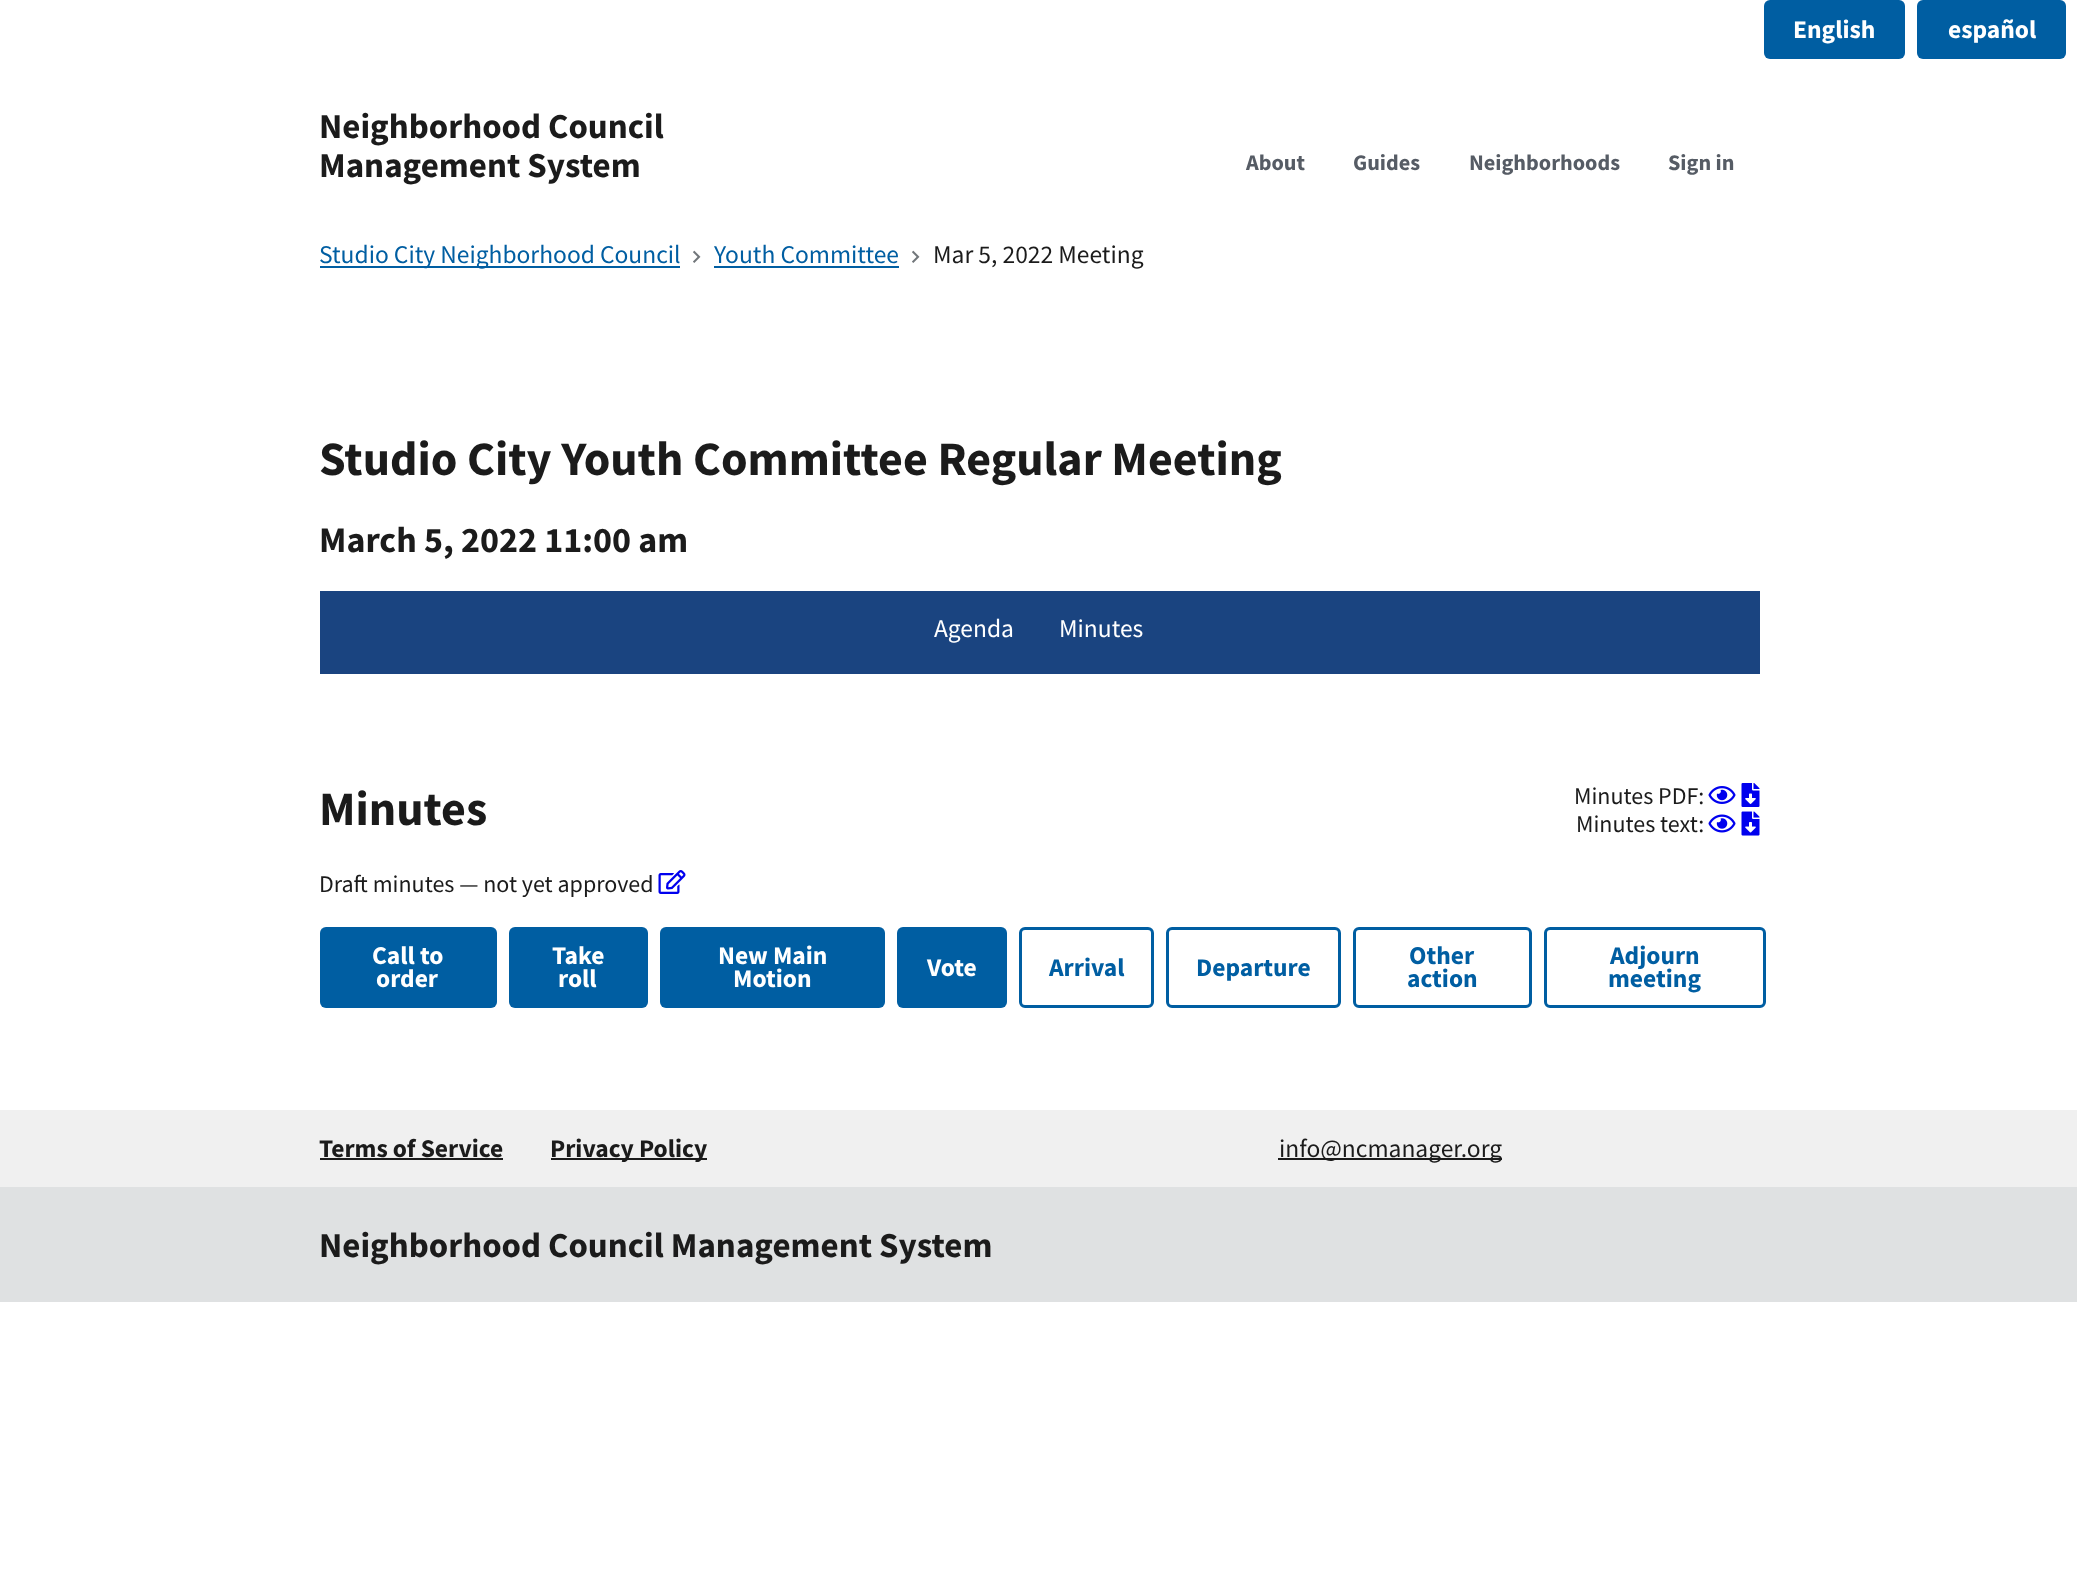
<?xml version="1.0" encoding="UTF-8"?>
<svg xmlns="http://www.w3.org/2000/svg" xmlns:xlink="http://www.w3.org/1999/xlink" width="2077" height="1582">
  <rect width="100%" height="100%" fill="#ffffff" />
  <rect x="1764" width="141" height="59" rx="6" fill="#005ea2" />
  <rect x="1917" width="149" height="59" rx="6" fill="#005ea2" />
  <rect x="320" y="266" width="360" height="2" fill="#005ea2" />
  <image x="693" y="250" width="8" height="13" xlink:href="image1.png" />
  <rect x="714" y="266" width="185" height="2" fill="#005ea2" />
  <image x="912" y="250" width="8" height="13" xlink:href="image1.png" />
  <rect x="320" y="591" width="1440" height="83" fill="#1a4480" />
  <image x="1708" y="786" width="28" height="18" xlink:href="image2.png" />
  <image x="1741" y="783" width="19" height="24" xlink:href="image3.png" />
  <image x="1708" y="814" width="28" height="19" xlink:href="image4.png" />
  <image x="1741" y="811" width="19" height="25" xlink:href="image5.png" />
  <image x="658" y="870" width="28" height="24" xlink:href="image6.png" />
  <rect x="320" y="927" width="177" height="81" rx="6" fill="#005ea2" />
  <rect x="509" y="927" width="139" height="81" rx="6" fill="#005ea2" />
  <rect x="660" y="927" width="225" height="81" rx="6" fill="#005ea2" />
  <rect x="897" y="927" width="110" height="81" rx="6" fill="#005ea2" />
  <rect x="1020.5" y="928.5" width="132" height="78" rx="4.5" fill="none" stroke="#005ea2" stroke-width="3" />
  <rect x="1167.5" y="928.5" width="172" height="78" rx="4.5" fill="none" stroke="#005ea2" stroke-width="3" />
  <rect x="1354.5" y="928.5" width="176" height="78" rx="4.5" fill="none" stroke="#005ea2" stroke-width="3" />
  <rect x="1545.5" y="928.5" width="219" height="78" rx="4.5" fill="none" stroke="#005ea2" stroke-width="3" />
  <rect y="1110" width="2077" height="77" fill="#f0f0f0" />
  <rect x="320" y="1158" width="183" height="2" fill="#1b1b1b" />
  <rect x="551" y="1158" width="156" height="2" fill="#1b1b1b" />
  <rect x="1278" y="1158" width="224" height="2" fill="#1b1b1b" />
  <rect y="1187" width="2077" height="115" fill="#dfe1e2" />
  <text x="1793" y="38" style="font-family: Source Sans Pro; font-size: 25.5px; font-weight: bold; fill: #ffffff">English</text>
  <text x="1948" y="38" style="font-family: Source Sans Pro; font-size: 25.5px; font-weight: bold; fill: #ffffff">español</text>
  <text x="319" y="138" style="font-family: Source Sans Pro; font-size: 35px; font-weight: bold; fill: #1b1b1b">Neighborhood Council</text>
  <text x="319" y="177" style="font-family: Source Sans Pro; font-size: 35px; font-weight: bold; fill: #1b1b1b">Management System</text>
  <text x="1246" y="170" style="font-family: Source Sans Pro; font-size: 22.25px; font-weight: bold; fill: #565c65">About</text>
  <text x="1353" y="170" style="font-family: Source Sans Pro; font-size: 22.25px; font-weight: bold; fill: #565c65">Guides</text>
  <text x="1469" y="170" style="font-family: Source Sans Pro; font-size: 22.25px; font-weight: bold; fill: #565c65">Neighborhoods</text>
  <text x="1668" y="170" style="font-family: Source Sans Pro; font-size: 22.25px; font-weight: bold; fill: #565c65">Sign in</text>
  <text x="319" y="263" style="font-family: Source Sans Pro; font-size: 25.5px; fill: #005ea2">Studio City Neighborhood Council</text>
  <text x="714" y="263" style="font-family: Source Sans Pro; font-size: 25.5px; fill: #005ea2">Youth Committee</text>
  <text x="933" y="263" style="font-family: Source Sans Pro; font-size: 25.5px; fill: #1b1b1b">Mar 5, 2022 Meeting</text>
  <text x="319" y="475" style="font-family: Source Sans Pro; font-size: 48px; font-weight: bold; fill: #1b1b1b">Studio City Youth Committee Regular Meeting</text>
  <text x="319" y="552" style="font-family: Source Sans Pro; font-size: 36px; font-weight: bold; fill: #1b1b1b">March 5, 2022 11:00 am</text>
  <text x="934" y="637" style="font-family: Source Sans Pro; font-size: 25.5px; fill: #ffffff">Agenda</text>
  <text x="1059" y="637" style="font-family: Source Sans Pro; font-size: 25.5px; fill: #ffffff">Minutes</text>
  <text x="319" y="825" style="font-family: Source Sans Pro; font-size: 48px; font-weight: bold; fill: #1b1b1b">Minutes</text>
  <text x="1574" y="804" style="font-family: Source Sans Pro; font-size: 24px; fill: #1b1b1b">Minutes PDF:</text>
  <text x="1576" y="832" style="font-family: Source Sans Pro; font-size: 24px; fill: #1b1b1b">Minutes text:</text>
  <text x="319" y="892" style="font-family: Source Sans Pro; font-size: 24px; fill: #1b1b1b">Draft minutes — not yet approved</text>
  <text x="372" y="964" style="font-family: Source Sans Pro; font-size: 25.5px; font-weight: bold; fill: #ffffff">Call to</text>
  <text x="376" y="987" style="font-family: Source Sans Pro; font-size: 25.5px; font-weight: bold; fill: #ffffff">order</text>
  <text x="552" y="964" style="font-family: Source Sans Pro; font-size: 25.5px; font-weight: bold; fill: #ffffff">Take</text>
  <text x="558" y="987" style="font-family: Source Sans Pro; font-size: 25.5px; font-weight: bold; fill: #ffffff">roll</text>
  <text x="718" y="964" style="font-family: Source Sans Pro; font-size: 25.5px; font-weight: bold; fill: #ffffff">New Main</text>
  <text x="733" y="987" style="font-family: Source Sans Pro; font-size: 25.5px; font-weight: bold; fill: #ffffff">Motion</text>
  <text x="927" y="976" style="font-family: Source Sans Pro; font-size: 25.5px; font-weight: bold; fill: #ffffff">Vote</text>
  <text x="1049" y="976" style="font-family: Source Sans Pro; font-size: 25.5px; font-weight: bold; fill: #005ea2">Arrival</text>
  <text x="1196" y="976" style="font-family: Source Sans Pro; font-size: 25.5px; font-weight: bold; fill: #005ea2">Departure</text>
  <text x="1409" y="964" style="font-family: Source Sans Pro; font-size: 25.5px; font-weight: bold; fill: #005ea2">Other</text>
  <text x="1407" y="987" style="font-family: Source Sans Pro; font-size: 25.5px; font-weight: bold; fill: #005ea2">action</text>
  <text x="1610" y="964" style="font-family: Source Sans Pro; font-size: 25.5px; font-weight: bold; fill: #005ea2">Adjourn</text>
  <text x="1608" y="987" style="font-family: Source Sans Pro; font-size: 25.5px; font-weight: bold; fill: #005ea2">meeting</text>
  <text x="319" y="1157" style="font-family: Source Sans Pro; font-size: 25.5px; font-weight: bold; fill: #1b1b1b">Terms of Service</text>
  <text x="550" y="1157" style="font-family: Source Sans Pro; font-size: 25.5px; font-weight: bold; fill: #1b1b1b">Privacy Policy</text>
  <text x="1279" y="1157" style="font-family: Source Sans Pro; font-size: 25.5px; fill: #1b1b1b">info@ncmanager.org</text>
  <text x="319" y="1257" style="font-family: Source Sans Pro; font-size: 35px; font-weight: bold; fill: #1b1b1b">Neighborhood Council Management System</text>
</svg>
